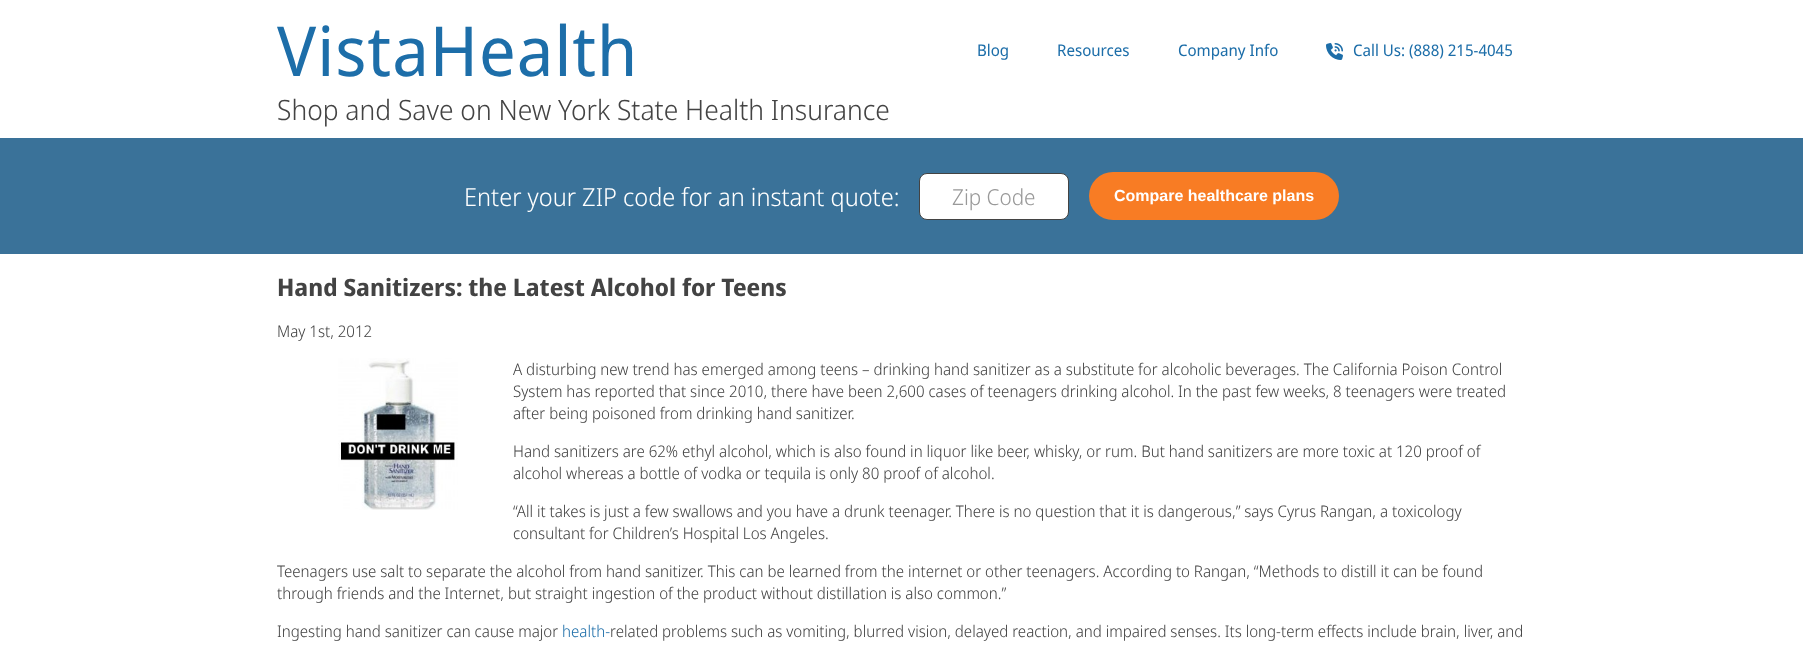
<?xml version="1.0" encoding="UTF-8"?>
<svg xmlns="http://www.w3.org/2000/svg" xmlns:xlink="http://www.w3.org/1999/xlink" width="1803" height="649">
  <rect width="100%" height="100%" fill="#ffffff" />
  <image x="1326" y="43" width="17" height="17" xlink:href="image1.png" />
  <rect y="138" width="1803" height="24" fill="#3a7299" />
  <rect y="162" width="1803" height="92" fill="#3a7299" />
  <rect x="919.5" y="173.5" width="149" height="46" rx="7.5" fill="#ffffff" stroke="#434343" />
  <rect x="1089" y="172" width="250" height="48" rx="24" fill="#f87c24" />
  <image x="338" y="358" width="120" height="152" xlink:href="image2.png" />
  <text x="277" y="76" style="font-family: Noto Sans Display; font-size: 69px; letter-spacing: 1px; fill: #1d6ea9">VistaHealth</text>
  <text x="977" y="56" style="font-family: Noto Sans Display; font-size: 16px; fill: #1d6ea9">Blog</text>
  <text x="1057" y="56" style="font-family: Noto Sans Display; font-size: 16px; fill: #1d6ea9">Resources</text>
  <text x="1178" y="56" style="font-family: Noto Sans Display; font-size: 16px; fill: #1d6ea9">Company Info</text>
  <text x="1353" y="56" style="font-family: Noto Sans Display; font-size: 16px; fill: #1d6ea9">Call Us: (888) 215-4045</text>
  <text x="277" y="120" style="font-family: Noto Sans Display; font-size: 28px; font-weight: 300; fill: #434343">Shop and Save on New York State Health Insurance</text>
  <text x="464" y="206" style="font-family: Noto Sans Display; font-size: 25px; font-weight: 300; fill: #ffffff">Enter your ZIP code for an instant quote:</text>
  <text x="952" y="205" style="font-family: Noto Sans Display; font-size: 22px; font-weight: 300; fill: #999999">Zip Code</text>
  <text x="1114" y="201" style="font-family: Liberation Sans; font-size: 16px; font-weight: bold; fill: #ffffff">Compare healthcare plans</text>
  <text x="277" y="296" style="font-family: Noto Sans Display; font-size: 24px; font-weight: bold; fill: #434343">Hand Sanitizers: the Latest Alcohol for Teens</text>
  <text x="277" y="337" style="font-family: Noto Sans Display; font-size: 16px; font-weight: 300; fill: #434343">May 1st, 2012</text>
  <text x="513" y="375" style="font-family: Noto Sans Display; font-size: 16px; font-weight: 300; fill: #434343">A disturbing new trend has emerged among teens – drinking hand sanitizer as a substitute for alcoholic beverages. The California Poison Control</text>
  <text x="513" y="397" style="font-family: Noto Sans Display; font-size: 16px; font-weight: 300; fill: #434343">System has reported that since 2010, there have been 2,600 cases of teenagers drinking alcohol. In the past few weeks, 8 teenagers were treated</text>
  <text x="513" y="419" style="font-family: Noto Sans Display; font-size: 16px; font-weight: 300; fill: #434343">after being poisoned from drinking hand sanitizer.</text>
  <text x="513" y="457" style="font-family: Noto Sans Display; font-size: 16px; font-weight: 300; fill: #434343">Hand sanitizers are 62% ethyl alcohol, which is also found in liquor like beer, whisky, or rum. But hand sanitizers are more toxic at 120 proof of</text>
  <text x="513" y="479" style="font-family: Noto Sans Display; font-size: 16px; font-weight: 300; fill: #434343">alcohol whereas a bottle of vodka or tequila is only 80 proof of alcohol.</text>
  <text x="513" y="517" style="font-family: Noto Sans Display; font-size: 16px; font-weight: 300; fill: #434343">“All it takes is just a few swallows and you have a drunk teenager. There is no question that it is dangerous,” says Cyrus Rangan, a toxicology</text>
  <text x="513" y="539" style="font-family: Noto Sans Display; font-size: 16px; font-weight: 300; fill: #434343">consultant for Children’s Hospital Los Angeles.</text>
  <text x="277" y="577" style="font-family: Noto Sans Display; font-size: 16px; font-weight: 300; fill: #434343">Teenagers use salt to separate the alcohol from hand sanitizer. This can be learned from the internet or other teenagers. According to Rangan, “Methods to distill it can be found</text>
  <text x="277" y="599" style="font-family: Noto Sans Display; font-size: 16px; font-weight: 300; fill: #434343">through friends and the Internet, but straight ingestion of the product without distillation is also common.”</text>
  <text x="277" y="637" style="font-family: Noto Sans Display; font-size: 16px; font-weight: 300; fill: #434343">Ingesting hand sanitizer can cause major</text>
  <text x="562" y="637" style="font-family: Noto Sans Display; font-size: 16px; font-weight: 300; fill: #1d6ea9">health-</text>
  <text x="610" y="637" style="font-family: Noto Sans Display; font-size: 16px; font-weight: 300; fill: #434343">related problems such as vomiting, blurred vision, delayed reaction, and impaired senses. Its long-term effects include brain, liver, and</text>
</svg>
